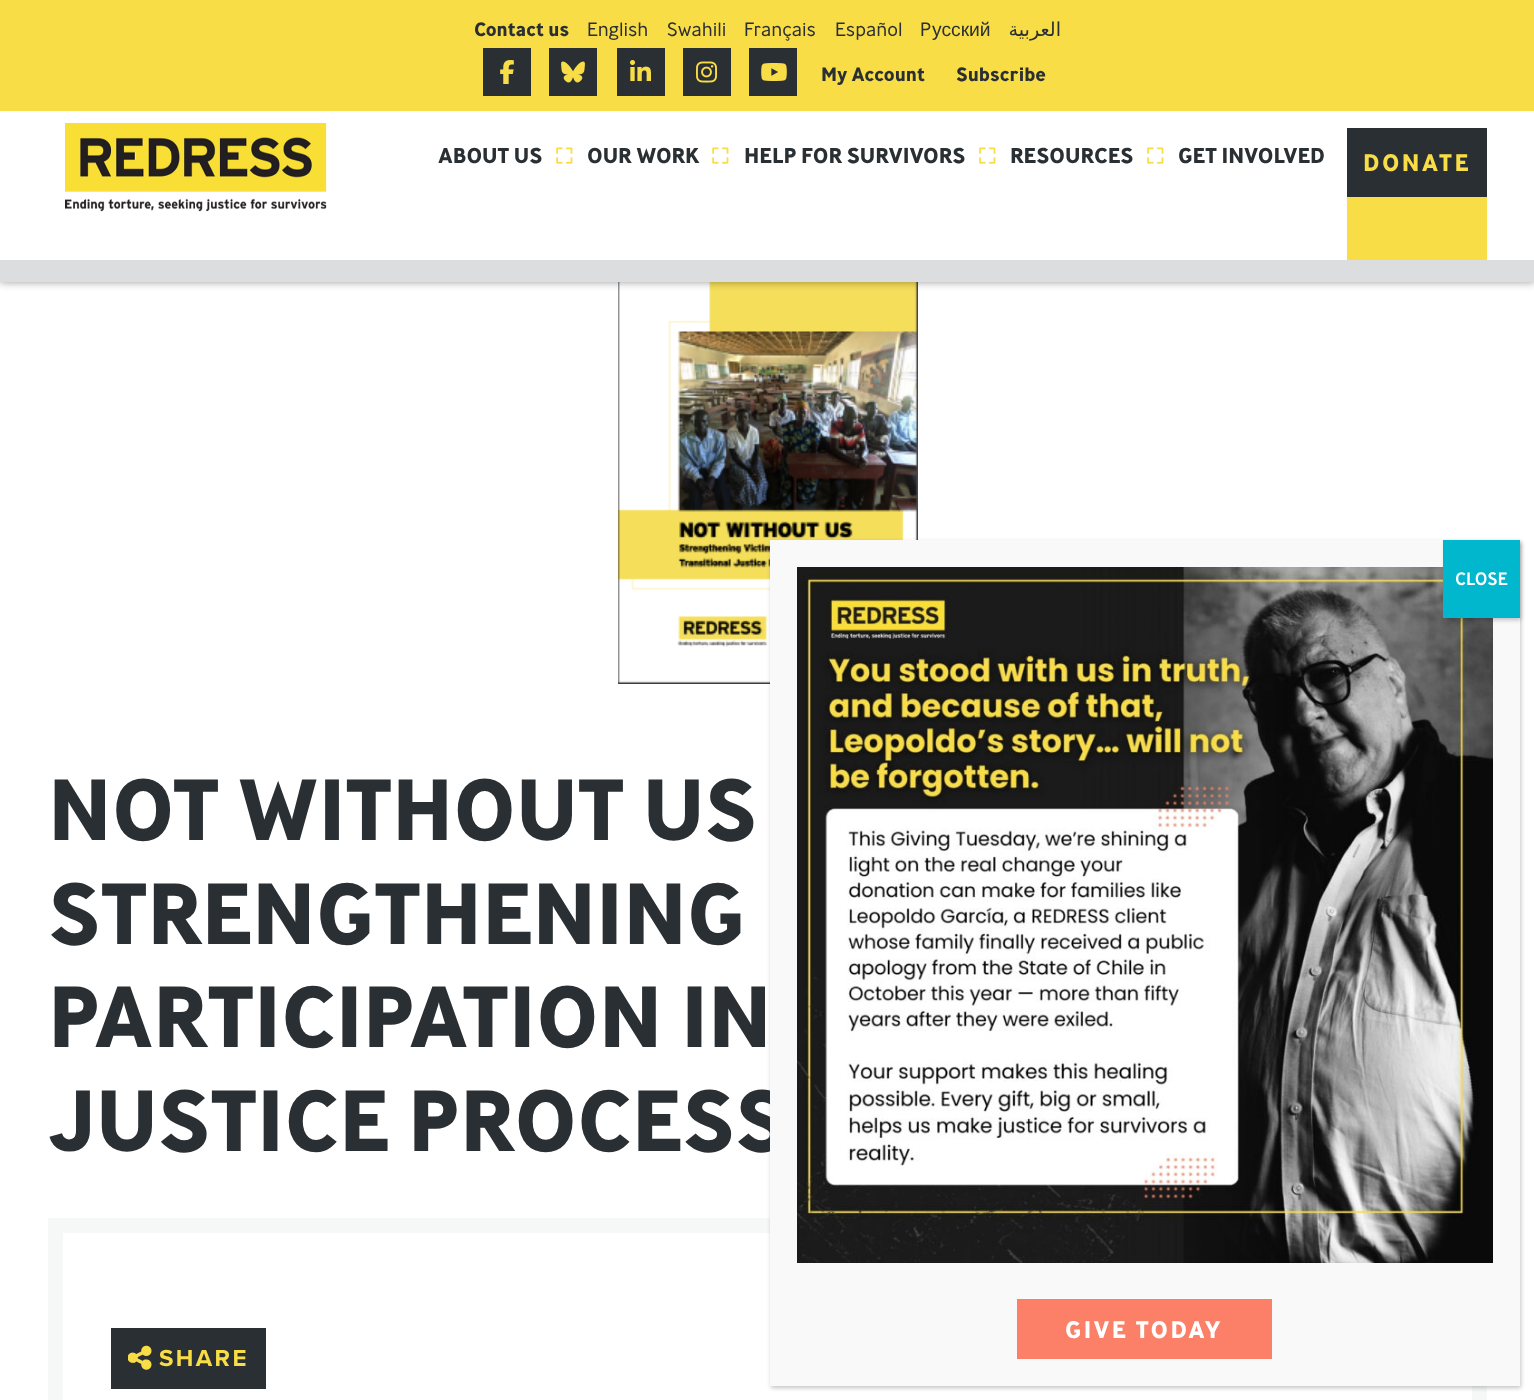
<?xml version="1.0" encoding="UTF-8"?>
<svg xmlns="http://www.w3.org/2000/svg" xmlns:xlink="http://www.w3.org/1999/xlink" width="1534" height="1400">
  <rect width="100%" height="100%" fill="#ffffff" />
  <image x="618" y="282" width="300" height="402" xlink:href="image8.png" />
  <rect y="75" width="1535" height="207" fill="#000000" fill-opacity="0.4" filter="blur(4px)" />
  <rect width="1534" height="111" fill="#f9dd47" />
  <rect x="483" y="48" width="48" height="48" fill="#2a2f33" />
  <image x="500" y="60" width="14" height="24" xlink:href="image1.png" />
  <rect x="549" y="48" width="48" height="48" fill="#2a2f33" />
  <image x="561" y="61" width="24" height="22" xlink:href="image2.png" />
  <rect x="617" y="48" width="48" height="48" fill="#2a2f33" />
  <image x="630" y="60" width="21" height="21" xlink:href="image3.png" />
  <rect x="683" y="48" width="48" height="48" fill="#2a2f33" />
  <image x="696" y="61" width="21" height="22" xlink:href="image4.png" />
  <rect x="749" y="48" width="48" height="48" fill="#2a2f33" />
  <image x="761" y="63" width="26" height="18" xlink:href="image5.png" />
  <rect y="111" width="1534" height="149" fill="#ffffff" />
  <rect y="260" width="1534" height="22" fill="#dcddde" />
  <image x="65" y="123" width="262" height="89" xlink:href="image6.png" />
  <image x="556" y="147" width="17" height="17" xlink:href="image7.png" />
  <image x="712" y="147" width="17" height="17" xlink:href="image7.png" />
  <image x="979" y="147" width="17" height="17" xlink:href="image7.png" />
  <image x="1147" y="147" width="17" height="17" xlink:href="image7.png" />
  <rect x="1347" y="128" width="140" height="69" fill="#2a2f33" />
  <rect x="1347" y="197" width="140" height="63" fill="#f9dd47" />
  <rect x="55.5" y="1225.5" width="1424" height="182" fill="none" stroke="#f6f7f7" stroke-width="15" />
  <rect x="111" y="1328" width="155" height="61" fill="#2a2f33" />
  <image x="128" y="1345" width="24" height="25" xlink:href="image9.png" />
  <rect x="771" y="542" width="750" height="846" fill="#020202" fill-opacity="0.23" filter="blur(2px)" />
  <text x="474" y="36" style="font-family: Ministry; font-size: 19.25px; font-weight: bold; fill: #2a2f33">Contact us</text>
  <text x="587" y="36" style="font-family: Ministry; font-size: 19.25px; font-weight: 300; fill: #2a2f33">English</text>
  <text x="667" y="36" style="font-family: Ministry; font-size: 19.25px; font-weight: 300; fill: #2a2f33">Swahili</text>
  <text x="744" y="36" style="font-family: Ministry; font-size: 19.25px; font-weight: 300; fill: #2a2f33">Français</text>
  <text x="835" y="36" style="font-family: Ministry; font-size: 19.25px; font-weight: 300; fill: #2a2f33">Español</text>
  <text x="920" y="36" style="font-family: Ministry; font-size: 19.25px; font-weight: 300; fill: #2a2f33">P</text>
  <text x="932" y="36" style="font-family: Liberation Sans; font-size: 19.25px; fill: #2a2f33">усский</text>
  <text x="1061" y="36" style="font-family: DejaVu Sans; font-size: 19.25px; direction: rtl; fill: #2a2f33">العربية</text>
  <text x="821" y="81" style="font-family: Ministry; font-size: 19.25px; font-weight: bold; fill: #2a2f33">My Account</text>
  <text x="956" y="81" style="font-family: Ministry; font-size: 19.25px; font-weight: bold; fill: #2a2f33">Subscribe</text>
  <text x="438" y="163" style="font-family: Ministry; font-size: 21.6px; font-weight: bold; fill: #2a2f33">ABOUT US</text>
  <text x="587" y="163" style="font-family: Ministry; font-size: 21.6px; font-weight: bold; fill: #2a2f33">OUR WORK</text>
  <text x="744" y="163" style="font-family: Ministry; font-size: 21.6px; font-weight: bold; fill: #2a2f33">HELP FOR SURVIVORS</text>
  <text x="1010" y="163" style="font-family: Ministry; font-size: 21.6px; font-weight: bold; fill: #2a2f33">RESOURCES</text>
  <text x="1178" y="163" style="font-family: Ministry; font-size: 21.6px; font-weight: bold; fill: #2a2f33">GET INVOLVED</text>
  <text x="1363" y="171" style="font-family: Ministry; font-size: 24px; font-weight: bold; letter-spacing: 2.4px; fill: #f9dd47">DONATE</text>
  <text x="48" y="840" style="font-family: Ministry; font-size: 86.5px; font-weight: bold; fill: #2a2f33">NOT WITHOUT US</text>
  <text x="48" y="944" style="font-family: Ministry; font-size: 86.5px; font-weight: bold; fill: #2a2f33">STRENGTHENING</text>
  <text x="48" y="1047" style="font-family: Ministry; font-size: 86.5px; font-weight: bold; fill: #2a2f33">PARTICIPATION IN</text>
  <text x="48" y="1151" style="font-family: Ministry; font-size: 86.5px; font-weight: bold; fill: #2a2f33">JUSTICE PROCESS</text>
  <text x="159" y="1366" style="font-family: Proxima Nova; font-size: 24px; font-weight: bold; letter-spacing: 2.4px; fill: #f9dd47">SHARE</text>
  <rect x="770" y="540" width="750" height="846" fill="#f9f9f9" />
  <image x="797" y="567" width="696" height="696" xlink:href="image10.png" />
  <rect x="1445" y="542" width="76" height="78" fill="#020202" fill-opacity="0.23" filter="blur(2px)" />
  <rect x="1443" y="540" width="77" height="78" fill="#00b7cd" />
  <text x="1455" y="585" style="font-family: Ministry; font-size: 18px; font-weight: 500; fill: #ffffff">CLOSE</text>
  <rect x="1017" y="1299" width="255" height="60" fill="#fb8067" />
  <text x="1065" y="1338" style="font-family: Ministry; font-size: 24px; font-weight: bold; letter-spacing: 2.4px; fill: #ffffff">GIVE TODAY</text>
</svg>
